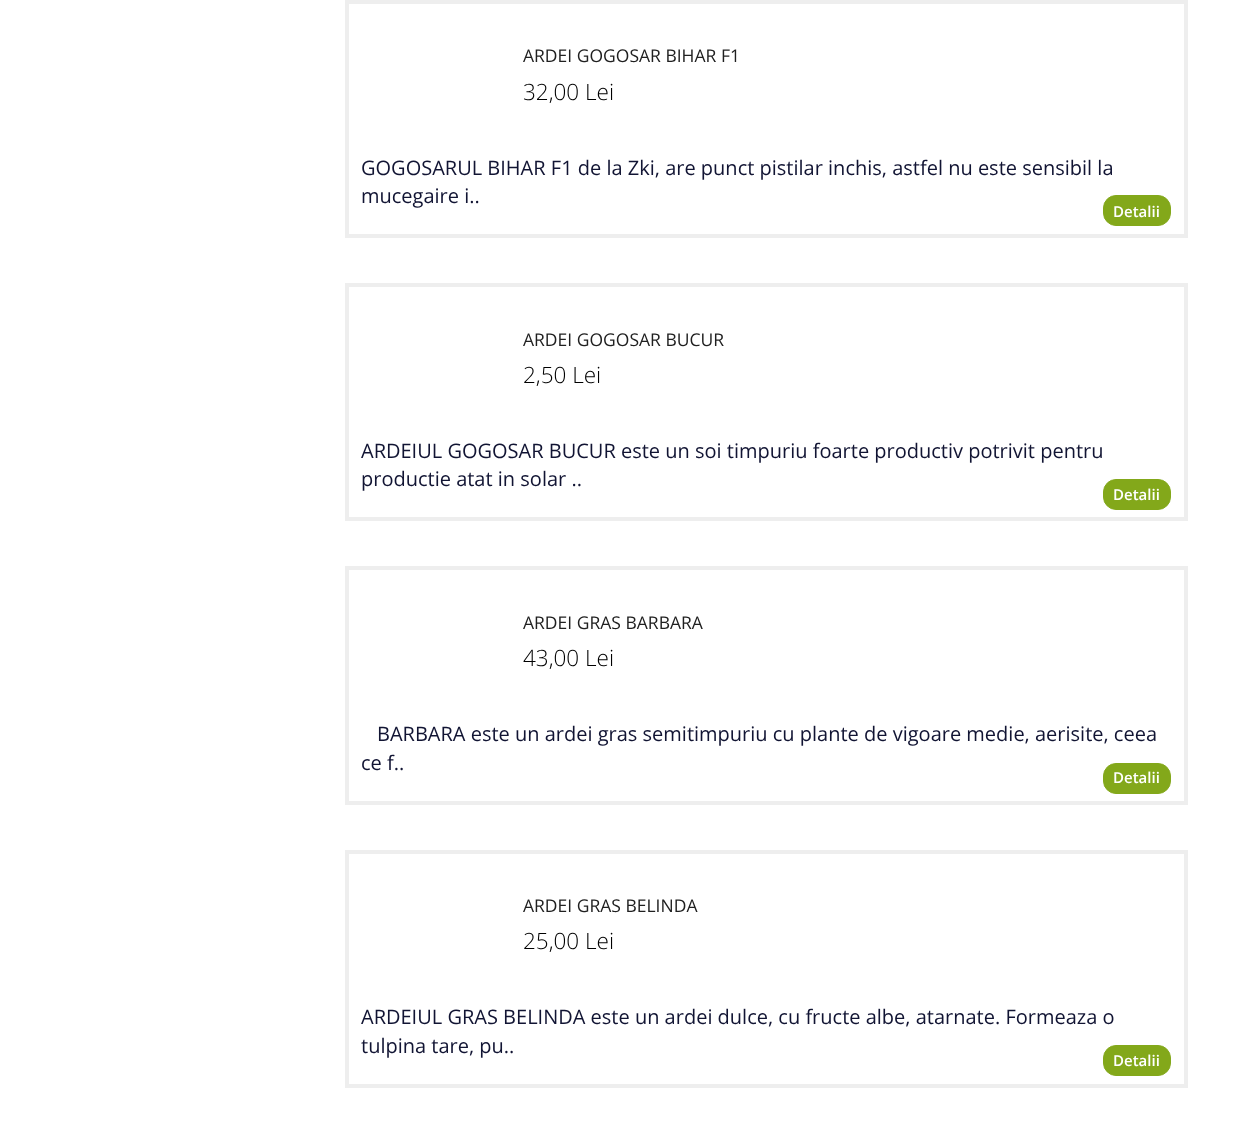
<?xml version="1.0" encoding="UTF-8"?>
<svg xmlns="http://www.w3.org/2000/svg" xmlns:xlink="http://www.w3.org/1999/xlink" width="1252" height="1121">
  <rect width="100%" height="100%" fill="#ffffff" />
  <rect x="347" y="2" width="839" height="234" fill="none" stroke="#eeeeee" stroke-width="4" />
  <rect x="1103.5" y="195.5" width="67" height="30" rx="12.5" fill="#83a81a" stroke="#83a81a" />
  <rect x="347" y="285" width="839" height="234" fill="none" stroke="#eeeeee" stroke-width="4" />
  <rect x="1103.5" y="479.5" width="67" height="30" rx="12.5" fill="#83a81a" stroke="#83a81a" />
  <rect x="347" y="568" width="839" height="235" fill="none" stroke="#eeeeee" stroke-width="4" />
  <rect x="1103.5" y="763.5" width="67" height="30" rx="12.5" fill="#83a81a" stroke="#83a81a" />
  <rect x="347" y="852" width="839" height="234" fill="none" stroke="#eeeeee" stroke-width="4" />
  <rect x="1103.5" y="1045.5" width="67" height="30" rx="12.5" fill="#83a81a" stroke="#83a81a" />
  <text x="523" y="62" style="font-family: Open Sans; font-size: 17.5px; fill: #202020">ARDEI GOGOSAR BIHAR F1</text>
  <text x="523" y="100" style="font-family: Open Sans; font-size: 22.5px; font-weight: 300; fill: #000000">32,00 Lei</text>
  <text x="361" y="175" style="font-family: Open Sans; font-size: 20px; fill: #111433">GOGOSARUL BIHAR F1 de la Zki, are punct pistilar inchis, astfel nu este sensibil la</text>
  <text x="361" y="203" style="font-family: Open Sans; font-size: 20px; fill: #111433">mucegaire i..</text>
  <text x="1113" y="217" style="font-family: Open Sans; font-size: 15px; font-weight: 600; fill: #ffffff">Detalii</text>
  <text x="523" y="346" style="font-family: Open Sans; font-size: 17.5px; fill: #202020">ARDEI GOGOSAR BUCUR</text>
  <text x="523" y="383" style="font-family: Open Sans; font-size: 22.5px; font-weight: 300; fill: #000000">2,50 Lei</text>
  <text x="361" y="458" style="font-family: Open Sans; font-size: 20px; fill: #111433">ARDEIUL GOGOSAR BUCUR este un soi timpuriu foarte productiv potrivit pentru</text>
  <text x="361" y="486" style="font-family: Open Sans; font-size: 20px; fill: #111433">productie atat in solar ..</text>
  <text x="1113" y="500" style="font-family: Open Sans; font-size: 15px; font-weight: 600; fill: #ffffff">Detalii</text>
  <text x="523" y="629" style="font-family: Open Sans; font-size: 17.5px; fill: #202020">ARDEI GRAS BARBARA</text>
  <text x="523" y="666" style="font-family: Open Sans; font-size: 22.5px; font-weight: 300; fill: #000000">43,00 Lei</text>
  <text x="377" y="741" style="font-family: Open Sans; font-size: 20px; fill: #111433">BARBARA este un ardei gras semitimpuriu cu plante de vigoare medie, aerisite, ceea</text>
  <text x="361" y="770" style="font-family: Open Sans; font-size: 20px; fill: #111433">ce f..</text>
  <text x="1113" y="783" style="font-family: Open Sans; font-size: 15px; font-weight: 600; fill: #ffffff">Detalii</text>
  <text x="523" y="912" style="font-family: Open Sans; font-size: 17.5px; fill: #202020">ARDEI GRAS BELINDA</text>
  <text x="523" y="949" style="font-family: Open Sans; font-size: 22.5px; font-weight: 300; fill: #000000">25,00 Lei</text>
  <text x="361" y="1024" style="font-family: Open Sans; font-size: 20px; fill: #111433">ARDEIUL GRAS BELINDA este un ardei dulce, cu fructe albe, atarnate. Formeaza o</text>
  <text x="361" y="1053" style="font-family: Open Sans; font-size: 20px; fill: #111433">tulpina tare, pu..</text>
  <text x="1113" y="1066" style="font-family: Open Sans; font-size: 15px; font-weight: 600; fill: #ffffff">Detalii</text>
</svg>
